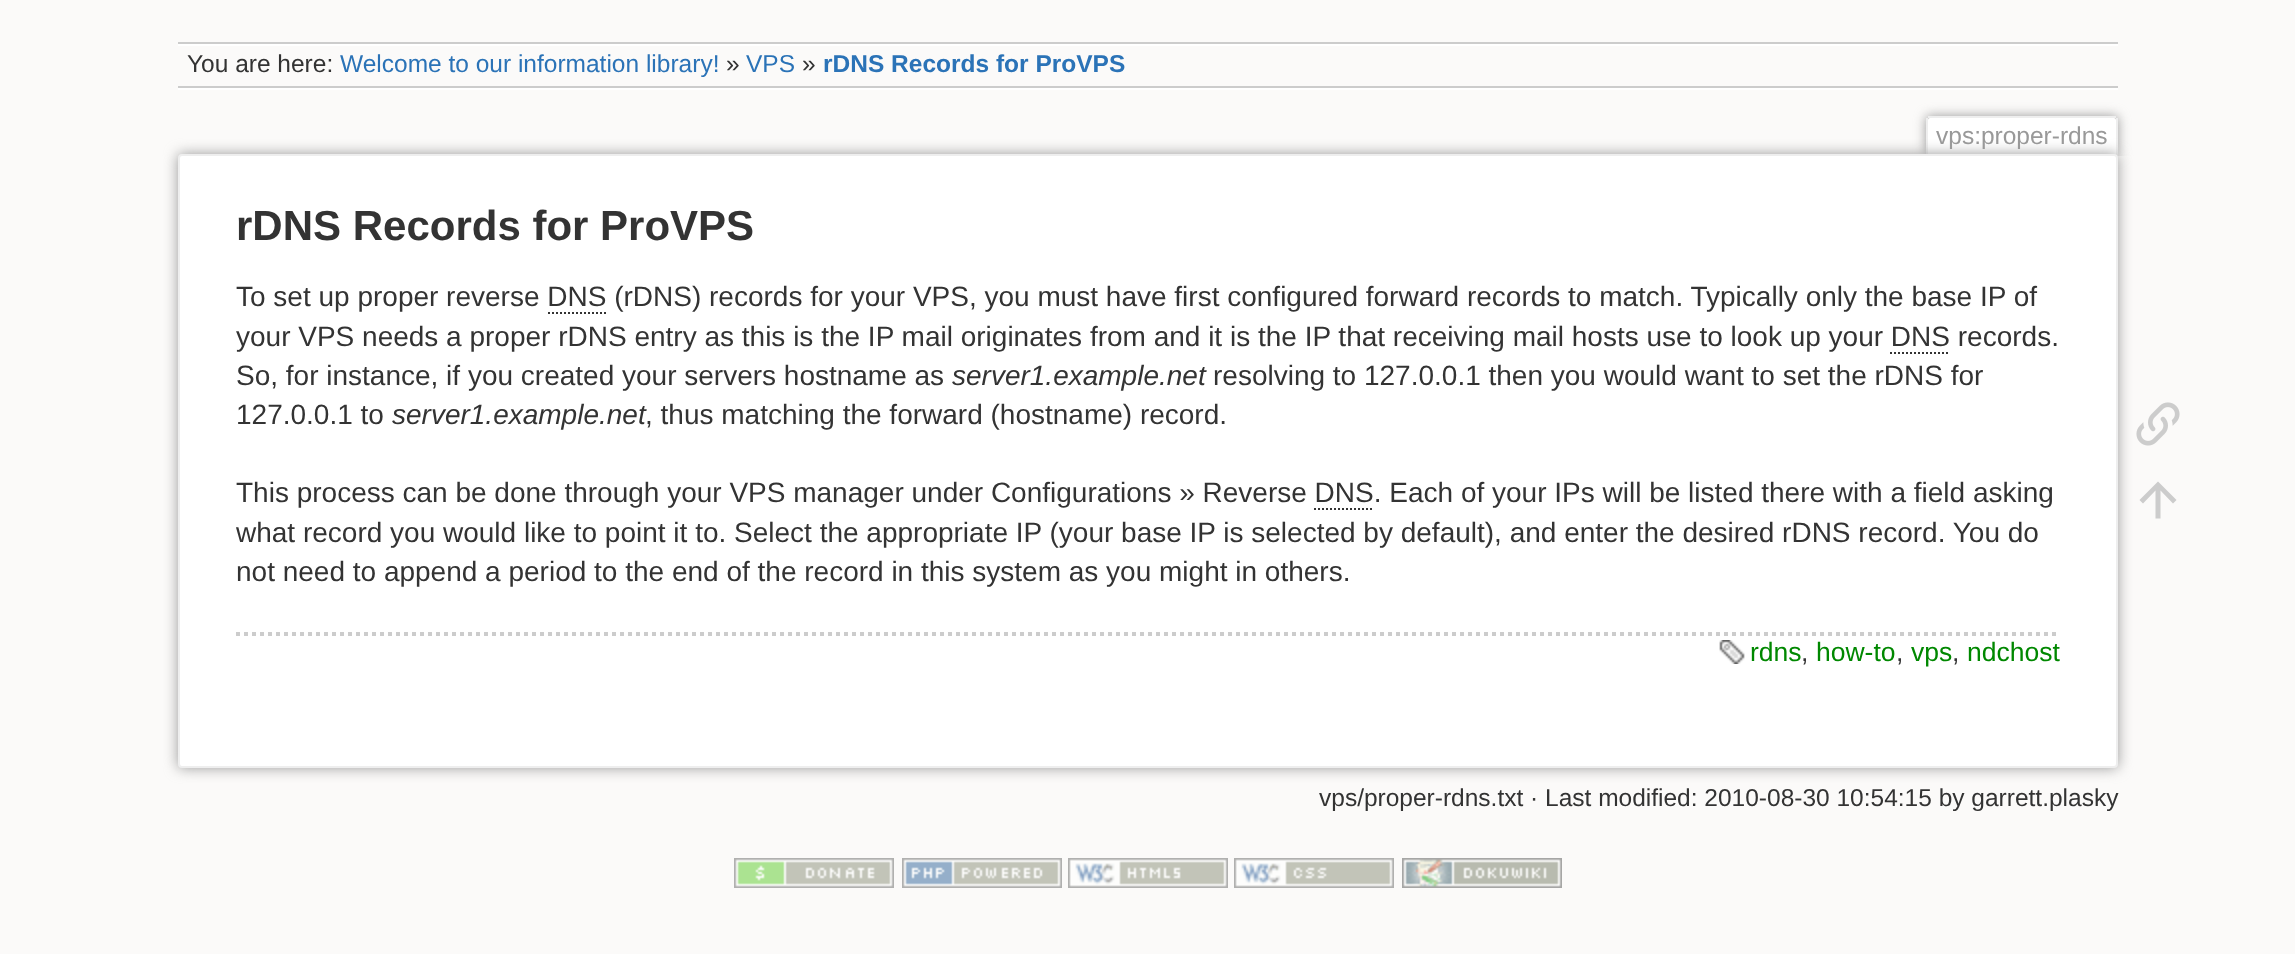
<?xml version="1.0" encoding="UTF-8"?>
<svg xmlns="http://www.w3.org/2000/svg" xmlns:xlink="http://www.w3.org/1999/xlink" width="2295" height="954">
  <defs>
    <clipPath id="clip1"><rect x="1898" y="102" width="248" height="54" /></clipPath>
  </defs>
  <rect width="100%" height="100%" fill="#fbfaf9" />
  <rect x="178" y="42" width="1940" height="2" fill="#cccccc" />
  <rect x="178" y="88" width="1940" height="2" fill="#ffffff" />
  <rect x="178" y="44" width="1940" height="2" fill="#ffffff" />
  <rect x="178" y="86" width="1940" height="2" fill="#cccccc" />
  <g clip-path="url(#clip1)">
    <rect x="1926" y="116" width="192" height="40" rx="4" fill="#999999" filter="blur(6px)" />
  </g>
  <path d="M 1930 118 h 184 c 1 0 2 1 2 2 v 36 h -188 v -36 c 0 -1 1 -2 2 -2 z" fill="#ffffff" />
  <rect x="1928" y="116" width="188" height="2" fill="#eeeeee" />
  <rect x="2116" y="118" width="2" height="38" fill="#eeeeee" />
  <rect x="1926" y="118" width="2" height="38" fill="#eeeeee" />
  <rect x="178" y="154" width="1940" height="614" rx="4" fill="#999999" filter="blur(7px)" />
  <rect x="179" y="155" width="1938" height="612" rx="3" fill="#ffffff" stroke="#eeeeee" stroke-width="2" />
  <path d="M 548 313 h 58" fill="none" stroke="#333333" stroke-width="2" stroke-dasharray="2 2" />
  <path d="M 1890 353 h 60" fill="none" stroke="#333333" stroke-width="2" stroke-dasharray="2 2" />
  <path d="M 1314 509 h 60" fill="none" stroke="#333333" stroke-width="2" stroke-dasharray="2 2" />
  <path d="M 236 634 h 1824" fill="none" stroke="#cccccc" stroke-width="4" stroke-dasharray="4 4" />
  <image x="1719" y="640" width="26" height="24" xlink:href="image1.png" />
  <image x="2136" y="402" width="44" height="44" xlink:href="image2.png" />
  <path d="M 2160.5 518.5 h -5 v -28 l -12.5 13 l -3.5 -3.5 l 18.5 -18.5 l 18.5 18.5 l -3.5 3.5 l -12.5 -13 z" fill="#cccccc" />
  <image x="734" y="858" width="160" height="30" xlink:href="image3.png" />
  <image x="902" y="858" width="160" height="30" xlink:href="image4.png" />
  <image x="1068" y="858" width="160" height="30" xlink:href="image5.png" />
  <image x="1234" y="858" width="160" height="30" xlink:href="image6.png" />
  <image x="1402" y="858" width="160" height="30" xlink:href="image7.png" />
  <text x="187" y="72" style="font-family: Liberation Sans; font-size: 24.5px; fill: #333333">You are here:</text>
  <text x="340" y="72" style="font-family: Liberation Sans; font-size: 24.5px; fill: #2b73b7">Welcome to our information library!</text>
  <text x="726" y="72" style="font-family: Liberation Sans; font-size: 24.5px; fill: #333333">»</text>
  <text x="746" y="72" style="font-family: Liberation Sans; font-size: 24.5px; fill: #2b73b7">VPS</text>
  <text x="802" y="72" style="font-family: Liberation Sans; font-size: 24.5px; fill: #333333">»</text>
  <text x="823" y="72" style="font-family: Liberation Sans; font-size: 24.5px; font-weight: bold; fill: #2b73b7">rDNS Records for ProVPS</text>
  <text x="1936" y="144" style="font-family: Liberation Sans; font-size: 24.5px; fill: #999999">vps:proper-rdns</text>
  <text x="236" y="240" style="font-family: Liberation Sans; font-size: 42px; font-weight: bold; fill: #333333">rDNS Records for ProVPS</text>
  <text x="236" y="306" style="font-family: Liberation Sans; font-size: 28px; fill: #333333">To set up proper reverse DNS (rDNS) records for your VPS, you must have first configured forward records to match. Typically only the base IP of</text>
  <text x="236" y="346" style="font-family: Liberation Sans; font-size: 28px; fill: #333333">your VPS needs a proper rDNS entry as this is the IP mail originates from and it is the IP that receiving mail hosts use to look up your DNS records.</text>
  <text x="236" y="385" style="font-family: Liberation Sans; font-size: 28px; fill: #333333">So, for instance, if you created your servers hostname as</text>
  <text x="952" y="385" style="font-family: Liberation Sans; font-size: 28px; font-style: italic; fill: #333333">server1.example.net</text>
  <text x="1213" y="385" style="font-family: Liberation Sans; font-size: 28px; fill: #333333">resolving to 127.0.0.1 then you would want to set the rDNS for</text>
  <text x="236" y="424" style="font-family: Liberation Sans; font-size: 28px; fill: #333333">127.0.0.1 to</text>
  <text x="392" y="424" style="font-family: Liberation Sans; font-size: 28px; font-style: italic; fill: #333333">server1.example.net</text>
  <text x="645" y="424" style="font-family: Liberation Sans; font-size: 28px; fill: #333333">, thus matching the forward (hostname) record.</text>
  <text x="236" y="502" style="font-family: Liberation Sans; font-size: 28px; fill: #333333">This process can be done through your VPS manager under Configurations » Reverse DNS. Each of your IPs will be listed there with a field asking</text>
  <text x="236" y="542" style="font-family: Liberation Sans; font-size: 28px; fill: #333333">what record you would like to point it to. Select the appropriate IP (your base IP is selected by default), and enter the desired rDNS record. You do</text>
  <text x="236" y="581" style="font-family: Liberation Sans; font-size: 28px; fill: #333333">not need to append a period to the end of the record in this system as you might in others.</text>
  <text x="1750" y="661" style="font-family: Liberation Sans; font-size: 26.5px; fill: #008800">rdns</text>
  <text x="1801" y="661" style="font-family: Liberation Sans; font-size: 26.5px; fill: #333333">,</text>
  <text x="1816" y="661" style="font-family: Liberation Sans; font-size: 26.5px; fill: #008800">how-to</text>
  <text x="1896" y="661" style="font-family: Liberation Sans; font-size: 26.5px; fill: #333333">,</text>
  <text x="1911" y="661" style="font-family: Liberation Sans; font-size: 26.5px; fill: #008800">vps</text>
  <text x="1952" y="661" style="font-family: Liberation Sans; font-size: 26.5px; fill: #333333">,</text>
  <text x="1967" y="661" style="font-family: Liberation Sans; font-size: 26.5px; fill: #008800">ndchost</text>
  <text x="1319" y="806" style="font-family: Liberation Sans; font-size: 24.5px; fill: #333333">vps/proper-rdns.txt · Last modified: 2010-08-30 10:54:15 by garrett.plasky</text>
</svg>
